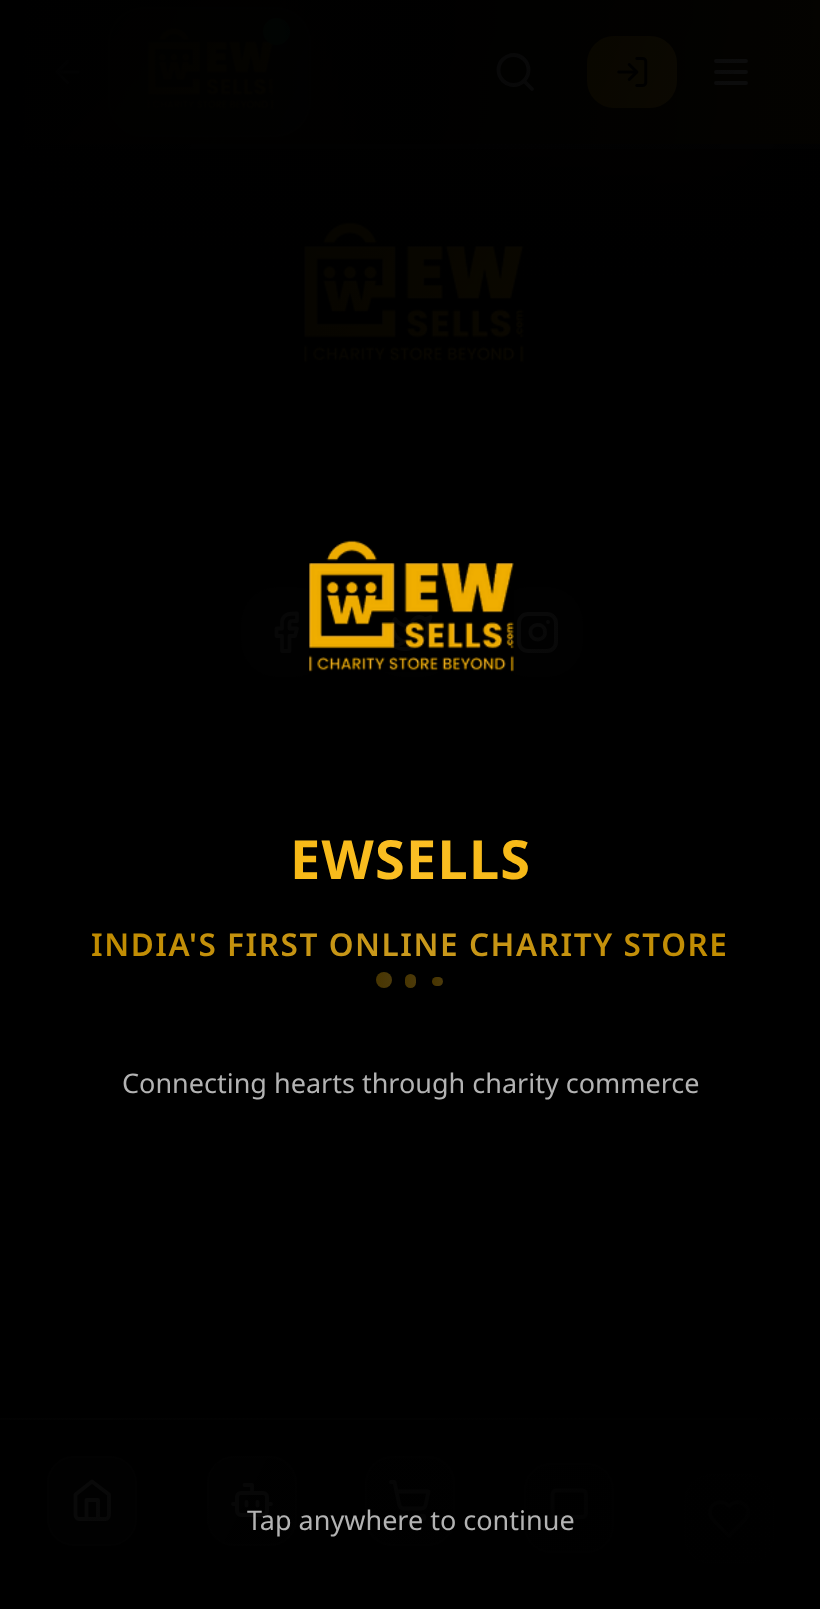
<?xml version="1.0" encoding="UTF-8"?>
<svg xmlns="http://www.w3.org/2000/svg" xmlns:xlink="http://www.w3.org/1999/xlink" width="820" height="1609">
  <defs>
    <linearGradient id="g1" gradientUnits="userSpaceOnUse" x1="0" y1="72" x2="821" y2="72"><stop offset="0" stop-color="#483400" /><stop offset="0.5" stop-color="#000000" /><stop offset="1" stop-color="#483400" /></linearGradient>
    <linearGradient id="g2" gradientUnits="userSpaceOnUse" x1="0" y1="72" x2="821" y2="72"><stop offset="0" stop-color="#efae00" stop-opacity="0" /><stop offset="0.5" stop-color="#efae00" stop-opacity="0.05" /><stop offset="1" stop-color="#efae00" stop-opacity="0" /></linearGradient>
    <clipPath id="clip1"><rect x="108" y="7" width="203" height="130" rx="36" /></clipPath>
    <linearGradient id="g3" gradientUnits="userSpaceOnUse" x1="-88" y1="72" x2="110" y2="72"><stop offset="0" stop-color="#41320d" /><stop offset="1" stop-color="#4b3d1a" /></linearGradient>
    <linearGradient id="g4" gradientUnits="userSpaceOnUse" x1="110" y1="72" x2="308" y2="72"><stop offset="0" stop-color="#ffffff" stop-opacity="0.05" /><stop offset="1" stop-color="#ffffff" stop-opacity="0.1" /></linearGradient>
    <linearGradient id="g5" gradientUnits="userSpaceOnUse" x1="308" y1="72" x2="506" y2="72"><stop offset="0" stop-color="#261f0d" /><stop offset="1" stop-color="#312b1a" /></linearGradient>
    <linearGradient id="g6" gradientUnits="userSpaceOnUse" x1="91" y1="859" x2="730" y2="859"><stop offset="0" stop-color="#efae00" /><stop offset="0.5" stop-color="#fbbf24" /><stop offset="1" stop-color="#efae00" /></linearGradient>
    <linearGradient id="g7" gradientUnits="userSpaceOnUse" x1="91" y1="944" x2="730" y2="944"><stop offset="0" stop-color="#c08b00" /><stop offset="0.5" stop-color="#c9991d" /><stop offset="1" stop-color="#c08b00" /></linearGradient>
    <linearGradient id="g8" gradientUnits="userSpaceOnUse" x1="263" y1="32" x2="290" y2="32"><stop offset="0" stop-color="#4ade80" /><stop offset="1" stop-color="#10b981" /></linearGradient>
    <linearGradient id="g9" gradientUnits="userSpaceOnUse" x1="587" y1="72" x2="677" y2="72"><stop offset="0" stop-color="#efae00" /><stop offset="1" stop-color="#fbbf24" /></linearGradient>
    <linearGradient id="g10" gradientUnits="userSpaceOnUse" x1="-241" y1="473" x2="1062" y2="1138"><stop offset="0" stop-color="#000000" /><stop offset="0.5" stop-color="#000000" stop-opacity="0.95" /><stop offset="1" stop-color="#000000" /></linearGradient>
    <linearGradient id="g11" gradientUnits="userSpaceOnUse" x1="375" y1="980" x2="392" y2="980"><stop offset="0" stop-color="#483500" /><stop offset="1" stop-color="#4c3a0b" /></linearGradient>
    <linearGradient id="g12" gradientUnits="userSpaceOnUse" x1="404" y1="980" x2="417" y2="980"><stop offset="0" stop-color="#483500" /><stop offset="1" stop-color="#4c3a0b" /></linearGradient>
    <linearGradient id="g13" gradientUnits="userSpaceOnUse" x1="433" y1="980" x2="443" y2="980"><stop offset="0" stop-color="#483500" /><stop offset="1" stop-color="#4c3a0b" /></linearGradient>
  </defs>
  <rect width="100%" height="100%" fill="#000000" />
  <image x="304" y="221" width="220" height="142" xlink:href="image3.png" />
  <rect x="27" y="83" width="767" height="95" fill="#efae00" fill-opacity="0.1" filter="blur(56px)" />
  <rect x="24" width="796" height="144" fill="url(#g1)" />
  <rect x="21" y="144" width="799" height="5" fill="#1f1f1f" />
  <rect x="177" width="467" height="144" fill="url(#g2)" />
  <path d="M 67.5 82.5 l -10.5 -10.5 l 10.5 -10.5 m 10.5 10.5 h -21" fill="none" stroke="#f5f5f5" stroke-width="3" stroke-linecap="round" stroke-linejoin="round" />
  <g clip-path="url(#clip1)">
    <rect x="108" y="31" width="2" height="82" fill="url(#g3)" />
    <rect x="110" y="7" width="198" height="130" fill="url(#g4)" />
    <rect x="308" y="28" width="3" height="88" fill="url(#g5)" />
  </g>
  <rect x="109" y="8" width="201" height="128" rx="35" fill="none" stroke="#ffffff" stroke-opacity="0.1" stroke-width="2" />
  <image x="147" y="27" width="127" height="83" xlink:href="image1.png" />
  <rect x="272" y="36" width="9" height="9" rx="4.5" fill="#4ade80" fill-opacity="0.5" filter="blur(7px)" />
  <circle cx="276.5" cy="31.5" r="13.5" fill="url(#g8)" />
  <circle cx="513.5" cy="70" r="15" fill="none" stroke="#f5f5f5" stroke-width="3.8" />
  <path d="M 532 89 l -8 -8" fill="none" stroke="#f5f5f5" stroke-width="3.8" stroke-linecap="round" stroke-linejoin="round" />
  <rect x="587" y="36" width="90" height="72" rx="27" fill="url(#g9)" />
  <image x="617" y="57" width="31" height="30" xlink:href="image2.png" />
  <path d="M 716 72 h 30 m -30 -11 h 30 m -30 22 h 30" fill="none" stroke="#f5f5f5" stroke-width="3.8" stroke-linecap="round" stroke-linejoin="round" />
  <rect x="241" y="587" width="90" height="90" rx="36" fill="#0f0f0f" />
  <path d="M 297 613.5 c -6 0 -13 -0.5 -15 7.5 v 7.5 h -5.5 v 7.5 h 5.5 v 15 h 7.5 v -15 h 5.5 l 2 -7.5 h -7.5 c 0 -8.5 -1 -7.5 7.5 -7.5 z" fill="none" stroke="#b3b3b3" stroke-width="3.8" stroke-linecap="round" stroke-linejoin="round" />
  <rect x="367" y="587" width="90" height="90" rx="36" fill="#0f0f0f" />
  <path d="M 430.5 617 c 0 0 -1.5 4 -3.5 6.5 c 3 19 -18 32.5 -34 22 c 4 0 8 -1.5 11 -4 c -9 -2.5 -14 -13.5 -9 -22.5 c 4 5 10.5 8 17 7.5 c -2 -7.5 7 -12.5 13 -7 z" fill="none" stroke="#b3b3b3" stroke-width="3.8" stroke-linecap="round" stroke-linejoin="round" />
  <rect x="493" y="587" width="90" height="90" rx="36" fill="#0f0f0f" />
  <rect x="519" y="614" width="37" height="37" rx="9" fill="none" stroke="#b3b3b3" stroke-width="4" />
  <path d="M 545 631 c 1.5 9.5 -13 12 -14.5 2.5 c -1.5 -10 13.5 -12 14.5 -2.5 z m 3 -9 h 0" fill="none" stroke="#b3b3b3" stroke-width="3.8" stroke-linecap="round" stroke-linejoin="round" />
  <rect y="1418" width="820" height="2" fill="#333333" />
  <rect x="47" y="1456" width="90" height="90" rx="27" fill="#0d0d0d" />
  <rect x="48" y="1457" width="88" height="88" rx="26" fill="none" stroke="#ffffff" stroke-opacity="0.1" stroke-width="2" />
  <path d="M 75.5 1494.5 l 16.5 -13 l 17 13 v 20.5 c 0 2 -1.5 4 -3.5 4 h -26.5 c -2 0 -3.5 -2 -3.5 -4 z m 11 24.5 v -19 h 11.5 v 19" fill="none" stroke="#b3b3b3" stroke-width="3.8" stroke-linecap="round" stroke-linejoin="round" />
  <rect x="207" y="1456" width="90" height="90" rx="27" fill="#0d0d0d" />
  <rect x="208" y="1457" width="88" height="88" rx="26" fill="none" stroke="#ffffff" stroke-opacity="0.1" stroke-width="2" />
  <path d="M 252 1492.5 v -7.5 h -7.5" fill="none" stroke="#b3b3b3" stroke-width="3.8" stroke-linecap="round" stroke-linejoin="round" />
  <rect x="237" y="1493" width="30" height="22" rx="4" fill="none" stroke="#b3b3b3" stroke-width="4" />
  <path d="M 233 1504 h 4 m 30 0 h 4 m -13.5 -2 v 3.5 m -11 -3.5 v 3.5" fill="none" stroke="#b3b3b3" stroke-width="3.8" stroke-linecap="round" stroke-linejoin="round" />
  <rect x="365" y="1456" width="90" height="90" rx="27" fill="#0d0d0d" />
  <rect x="366" y="1457" width="88" height="88" rx="26" fill="none" stroke="#ffffff" stroke-opacity="0.1" stroke-width="2" />
  <circle cx="402" cy="1517.5" r="1.9" fill="none" stroke="#b3b3b3" stroke-width="3.8" />
  <circle cx="422.6" cy="1517.5" r="1.9" fill="none" stroke="#b3b3b3" stroke-width="3.8" />
  <path d="M 391 1482 h 3.5 l 5 23.5 c 0.5 1.5 2 3 4 3 h 18 c 2 0 3.5 -1.5 4 -3 l 3 -14 h -32" fill="none" stroke="#b3b3b3" stroke-width="3.8" stroke-linecap="round" stroke-linejoin="round" />
  <rect x="524" y="1463" width="90" height="90" rx="27" fill="#0d0d0d" />
  <rect x="525" y="1464" width="88" height="88" rx="26" fill="none" stroke="#ffffff" stroke-opacity="0.1" stroke-width="2" />
  <path d="M 586 1513 c 0 2 -1.5 4 -3.5 4 h -22.5 l -7.5 7.5 v -30 c 0 -2.5 1.5 -4 3.5 -4 h 26.5 c 2 0 3.5 1.5 3.5 4 z" fill="none" stroke="#b3b3b3" stroke-width="3.8" stroke-linecap="round" stroke-linejoin="round" />
  <rect x="684" y="1474" width="90" height="90" rx="27" fill="#0d0d0d" />
  <rect x="685" y="1475" width="88" height="88" rx="26" fill="none" stroke="#ffffff" stroke-opacity="0.1" stroke-width="2" />
  <path d="M 742 1522.5 c 2 -2 4.5 -4 5.5 -7 c 3.5 -11 -10 -18 -18.5 -9.5 c -8.5 -8.5 -21.5 -1.5 -18.5 9.5 c 1.5 4.5 6.5 8 9.5 11.5 l 9 9 z" fill="none" stroke="#b3b3b3" stroke-width="3.8" stroke-linecap="round" stroke-linejoin="round" />
  <rect width="820" height="1564" fill="url(#g10)" />
  <image x="309" y="540" width="205" height="132" xlink:href="image4.png" />
  <circle cx="384" cy="980" r="8" fill="url(#g11)" />
  <rect x="405" y="974" width="11" height="14" rx="5.5" fill="url(#g12)" />
  <rect x="432" y="977" width="11" height="9" rx="4.5" fill="url(#g13)" />
  <text x="290" y="879" style="font-family: Noto Sans; font-size: 54px; font-weight: bold; letter-spacing: 1.25px; fill: url(#g6)">EWSELLS</text>
  <text x="91" y="956" style="font-family: Noto Sans; font-size: 31.5px; font-weight: 600; letter-spacing: 1.55px; fill: url(#g7)">INDIA'S FIRST ONLINE CHARITY STORE</text>
  <text x="122" y="1093" style="font-family: Noto Sans; font-size: 27px; fill: #b3b3b3">Connecting hearts through charity commerce</text>
  <text x="247" y="1530" style="font-family: Noto Sans; font-size: 27px; fill: #b3b3b3">Tap anywhere to continue</text>
</svg>
